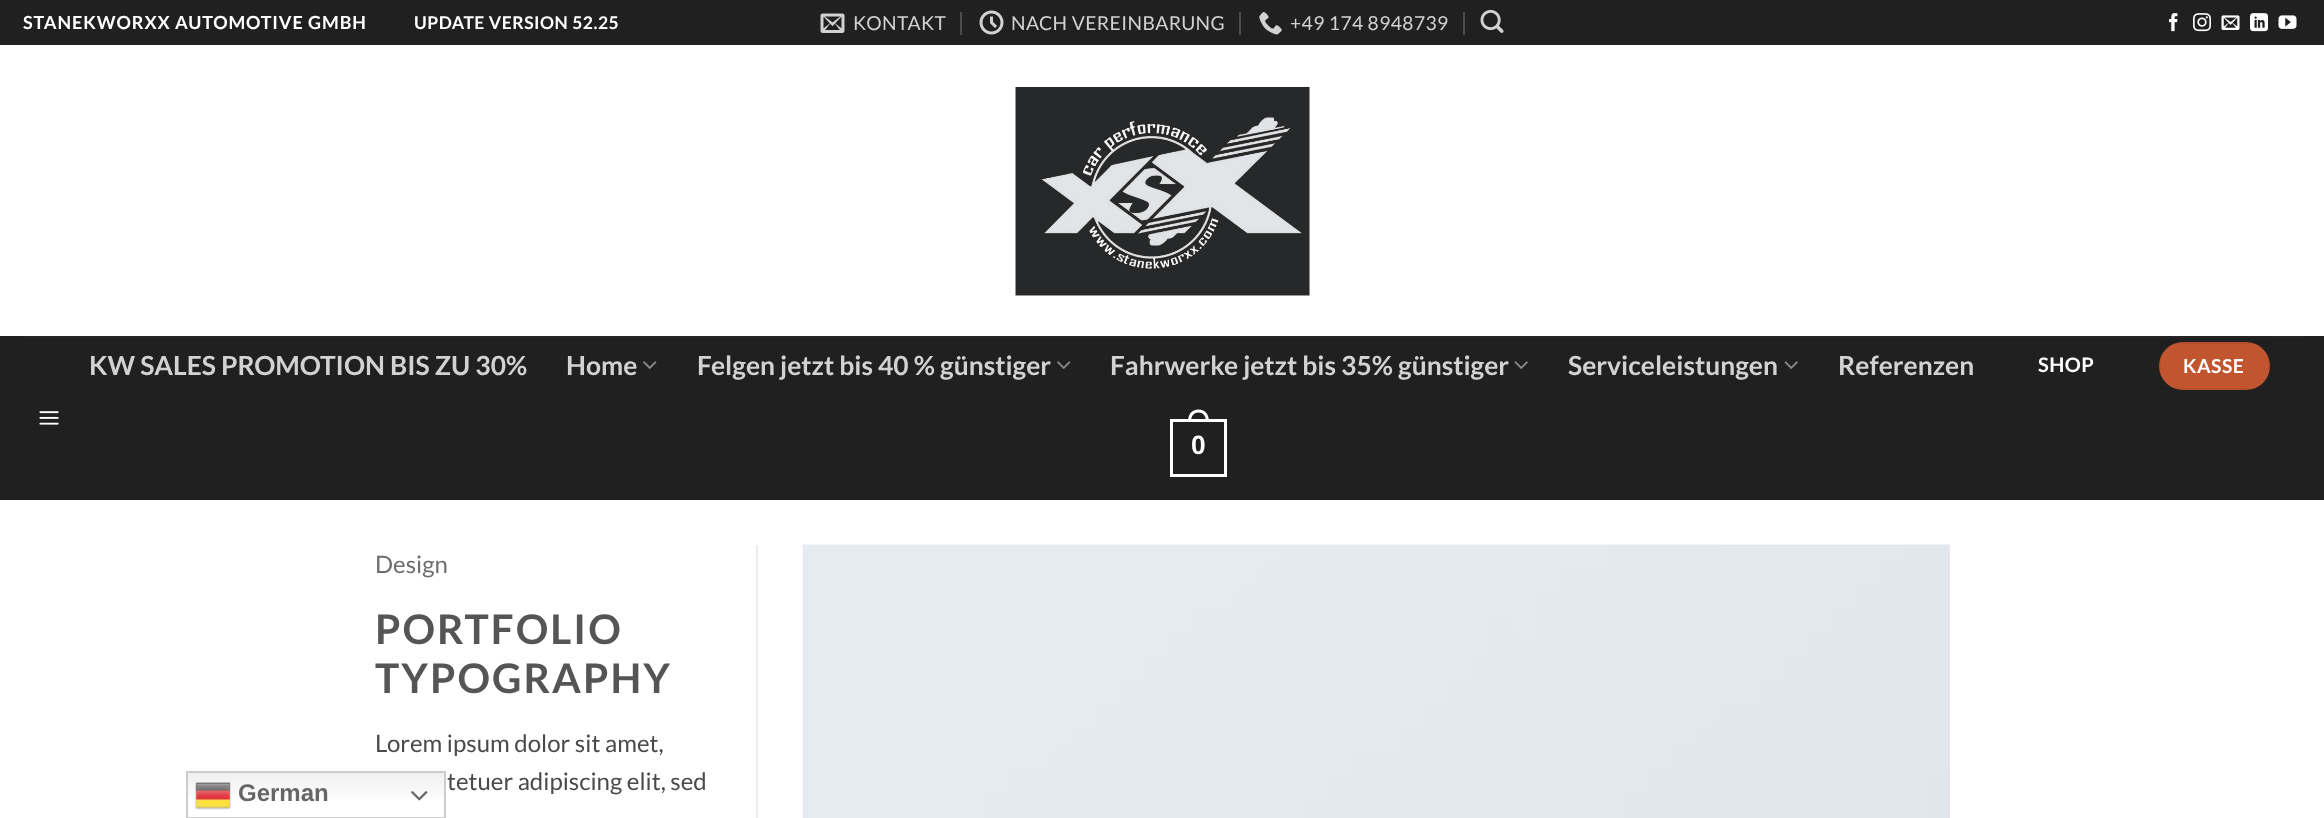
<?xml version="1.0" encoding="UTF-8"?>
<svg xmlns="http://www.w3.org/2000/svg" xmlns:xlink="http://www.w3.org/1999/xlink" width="2324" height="818">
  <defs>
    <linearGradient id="g1" gradientUnits="userSpaceOnUse" x1="316" y1="771" x2="316" y2="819"><stop offset="0" stop-color="#efefef" /><stop offset="0.7" stop-color="#ffffff" /></linearGradient>
  </defs>
  <rect width="100%" height="100%" fill="#ffffff" />
  <rect width="2324" height="45" fill="#202020" />
  <image x="820" y="13" width="25" height="20" xlink:href="image1.png" />
  <rect x="960" y="12" width="2" height="23" fill="#4d4d4d" />
  <image x="979" y="10" width="25" height="25" xlink:href="image2.png" />
  <rect x="1239" y="12" width="2" height="23" fill="#4d4d4d" />
  <image x="1259" y="12" width="23" height="23" xlink:href="image3.png" />
  <rect x="1463" y="12" width="2" height="23" fill="#4d4d4d" />
  <image x="1480" y="9" width="24" height="24" xlink:href="image4.png" />
  <image x="2169" y="13" width="9" height="19" xlink:href="image5.png" />
  <image x="2193" y="13" width="18" height="19" xlink:href="image6.png" />
  <image x="2221" y="15" width="19" height="15" xlink:href="image7.png" />
  <image x="2250" y="13" width="18" height="19" xlink:href="image8.png" />
  <image x="2278" y="15" width="19" height="14" xlink:href="image9.png" />
  <image x="1015" y="87" width="295" height="209" xlink:href="image10.png" />
  <rect y="336" width="2324" height="164" fill="#202020" />
  <rect x="23" y="336" width="2280" height="2" fill="#242424" />
  <image x="39" y="411" width="20" height="14" xlink:href="image11.png" />
  <image x="643" y="361" width="14" height="8" xlink:href="image12.png" />
  <image x="1057" y="361" width="14" height="8" xlink:href="image12.png" />
  <image x="1514" y="361" width="14" height="8" xlink:href="image13.png" />
  <image x="1784" y="361" width="14" height="8" xlink:href="image13.png" />
  <rect x="2159" y="342" width="111" height="48" rx="24" fill="#c05530" />
  <rect x="2160" y="343" width="109" height="46" fill="none" stroke="#000000" stroke-opacity="0.05" stroke-width="2" />
  <rect x="1171.5" y="420.5" width="54" height="55" fill="none" stroke="#ffffff" stroke-width="3" />
  <path d="M 1198.5 409.5 c 7 0 10.5 5.5 10.5 12 h -21 c 0 -6.5 3.5 -12 10.5 -12 z m 0 3 c 5.5 0 7.5 4.5 7.5 9 h -15 c 0 -4.5 2 -9 7.5 -9 z" fill="#ffffff" fill-rule="evenodd" />
  <rect x="756" y="545" width="2" height="273" fill="#ececec" />
  <image x="802" y="544" width="1148" height="274" xlink:href="image14.png" />
  <rect x="188" y="773" width="256" height="26" fill="url(#g1)" />
  <rect x="187" y="772" width="258" height="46" fill="none" stroke="#cccccc" stroke-width="2" />
  <image x="195" y="782" width="36" height="28" xlink:href="image15.png" />
  <image x="411" y="791" width="17" height="10" xlink:href="image16.png" />
  <text x="23" y="29" style="font-family: Lato; font-size: 18px; font-weight: bold; letter-spacing: 0.9px; fill: #ffffff">STANEKWORXX AUTOMOTIVE GMBH</text>
  <text x="414" y="29" style="font-family: Lato; font-size: 17.5px; font-weight: bold; letter-spacing: 0.5px; fill: #ffffff">UPDATE VERSION 52.25</text>
  <text x="853" y="30" style="font-family: Lato; font-size: 19.25px; letter-spacing: 0.4px; fill: #d2d2d2">KONTAKT</text>
  <text x="1011" y="30" style="font-family: Lato; font-size: 19.25px; letter-spacing: 0.4px; fill: #d2d2d2">NACH VEREINBARUNG</text>
  <text x="1290" y="30" style="font-family: Lato; font-size: 19.25px; letter-spacing: 0.4px; fill: #d2d2d2">+49 174 8948739</text>
  <text x="89" y="375" style="font-family: Lato; font-size: 26.4px; font-weight: bold; fill: #d2d2d2">KW SALES PROMOTION BIS ZU 30%</text>
  <text x="566" y="375" style="font-family: Lato; font-size: 26.4px; font-weight: bold; fill: #d2d2d2">Home</text>
  <text x="697" y="375" style="font-family: Lato; font-size: 26.4px; font-weight: bold; fill: #d2d2d2">Felgen jetzt bis 40 % günstiger</text>
  <text x="1110" y="375" style="font-family: Lato; font-size: 26.4px; font-weight: bold; fill: #d2d2d2">Fahrwerke jetzt bis 35% günstiger</text>
  <text x="1568" y="375" style="font-family: Lato; font-size: 26.4px; font-weight: bold; fill: #d2d2d2">Serviceleistungen</text>
  <text x="1838" y="375" style="font-family: Lato; font-size: 26.4px; font-weight: bold; fill: #d2d2d2">Referenzen</text>
  <text x="2038" y="372" style="font-family: Lato; font-size: 20px; font-weight: bold; letter-spacing: 0.5px; fill: #ffffff">SHOP</text>
  <text x="2183" y="373" style="font-family: Lato; font-size: 19.25px; font-weight: bold; letter-spacing: 0.5px; fill: #ffffff">KASSE</text>
  <text x="1191" y="454" style="font-family: Liberation Sans; font-size: 26.4px; font-weight: bold; fill: #ffffff">0</text>
  <text x="375" y="573" style="font-family: Lato; font-size: 24px; fill: #6e6e6e">Design</text>
  <text x="375" y="644" style="font-family: Lato; font-size: 40.75px; font-weight: bold; letter-spacing: 2px; fill: #555555">PORTFOLIO</text>
  <text x="375" y="693" style="font-family: Lato; font-size: 40.75px; font-weight: bold; letter-spacing: 2px; fill: #555555">TYPOGRAPHY</text>
  <text x="375" y="752" style="font-family: Lato; font-size: 24px; fill: #4a4a4a">Lorem ipsum dolor sit amet,</text>
  <text x="447" y="790" style="font-family: Lato; font-size: 24px; fill: #4a4a4a">tetuer adipiscing elit, sed</text>
  <text x="238" y="801" style="font-family: Liberation Sans; font-size: 24px; font-weight: bold; fill: #666666">German</text>
</svg>
